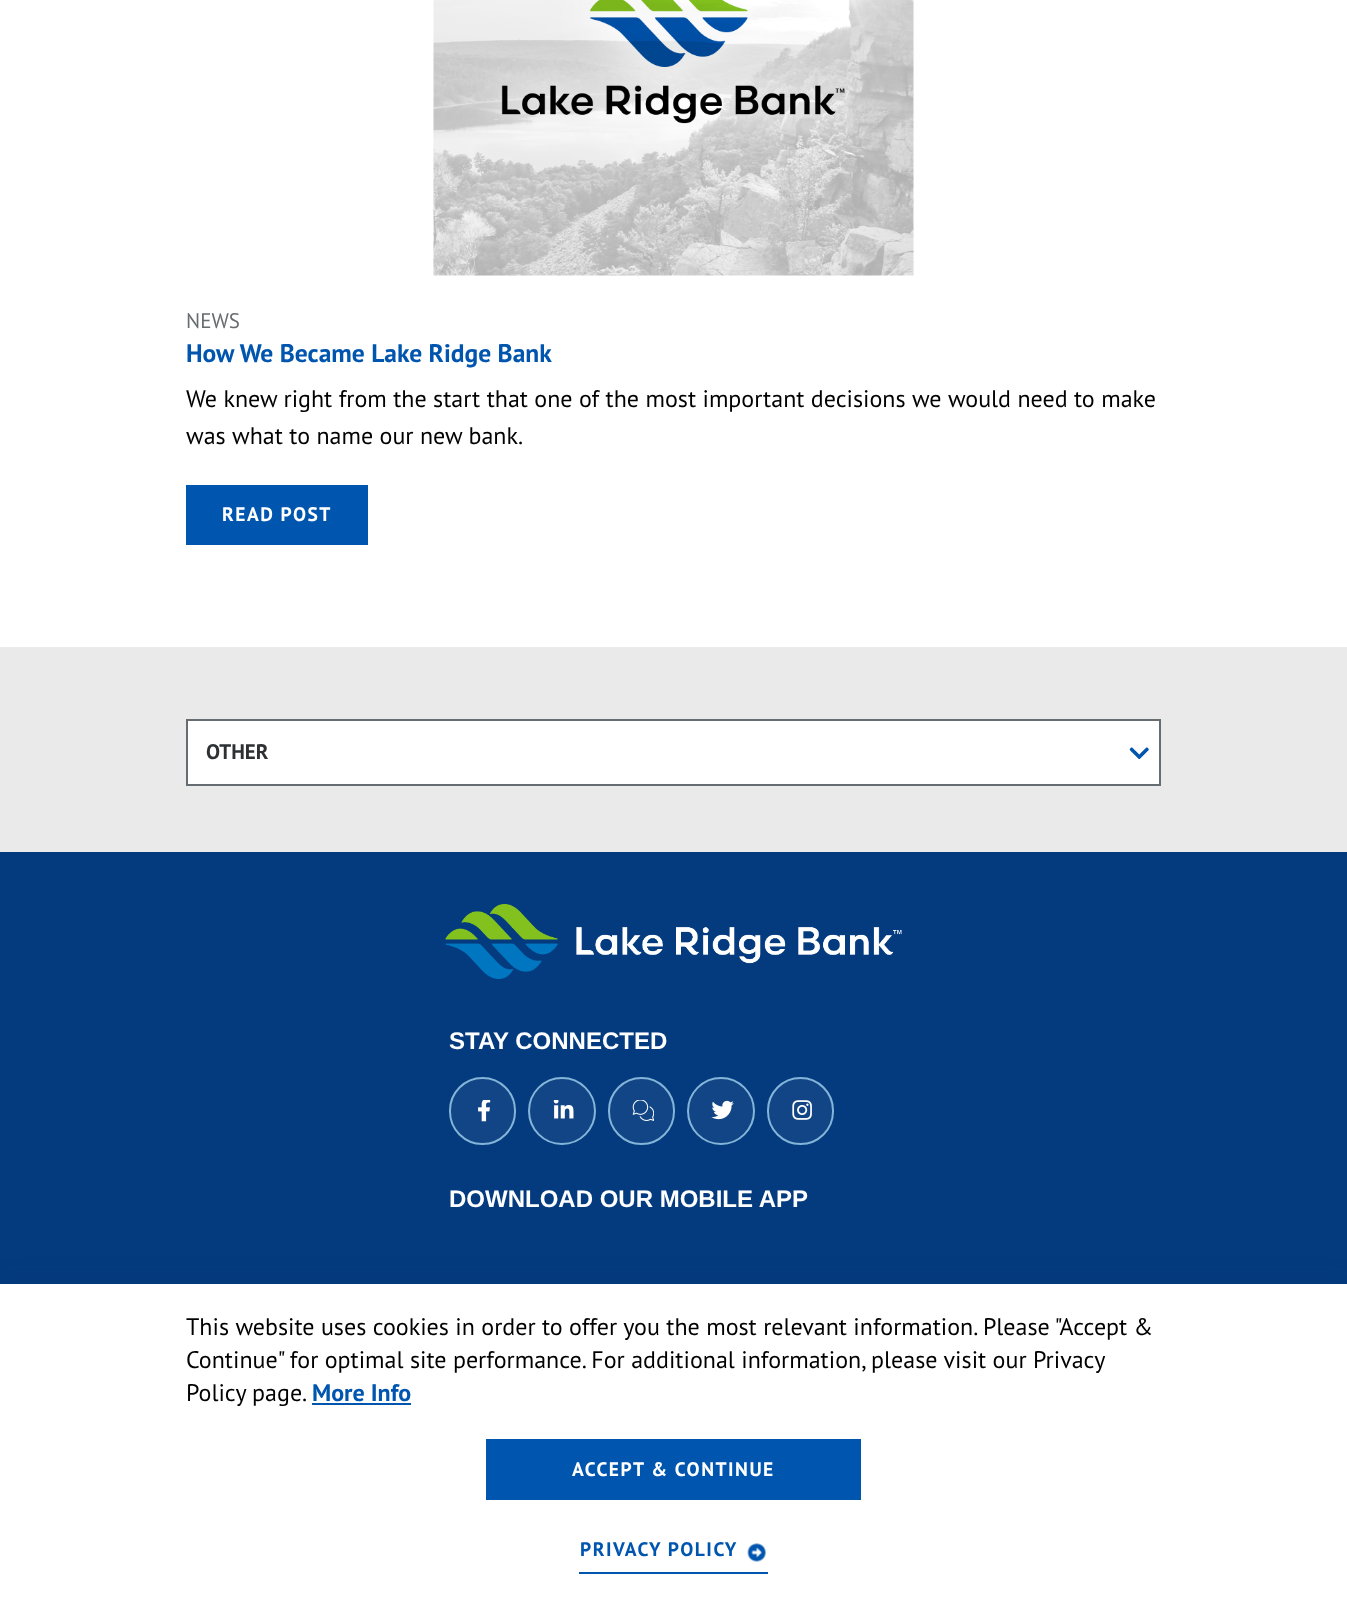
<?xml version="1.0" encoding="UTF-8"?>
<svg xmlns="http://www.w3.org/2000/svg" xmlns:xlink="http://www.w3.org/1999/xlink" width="1347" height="1598">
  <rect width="100%" height="100%" fill="#ffffff" />
  <image x="433" y="0" width="481" height="276" xlink:href="image1.png" />
  <rect x="186" y="485" width="182" height="60" fill="#0055af" />
  <rect y="647" width="1347" height="205" fill="#eaeaea" />
  <rect x="187" y="720" width="973" height="65" fill="#ffffff" stroke="#666d70" stroke-width="2" />
  <image x="1129" y="747" width="20" height="12" xlink:href="image2.png" />
  <rect y="852" width="1347" height="432" fill="#043b7f" />
  <image x="445" y="904" width="457" height="75" xlink:href="image3.png" />
  <rect x="450" y="1078" width="65" height="66" rx="32.5" fill="#114585" stroke="#84b5d9" stroke-width="2" />
  <image x="478" y="1100" width="13" height="22" xlink:href="image4.png" />
  <circle cx="562" cy="1111" r="33" fill="#114585" stroke="#84b5d9" stroke-width="2" />
  <image x="553" y="1100" width="21" height="19" xlink:href="image5.png" />
  <rect x="609" y="1078" width="65" height="66" rx="32.5" fill="#114585" stroke="#84b5d9" stroke-width="2" />
  <image x="632" y="1100" width="22" height="21" xlink:href="image6.png" />
  <circle cx="721" cy="1111" r="33" fill="#114585" stroke="#84b5d9" stroke-width="2" />
  <image x="711" y="1100" width="23" height="20" xlink:href="image7.png" />
  <rect x="768" y="1078" width="65" height="66" rx="32.5" fill="#114585" stroke="#84b5d9" stroke-width="2" />
  <image x="792" y="1100" width="20" height="20" xlink:href="image8.png" />
  <rect y="1278" width="1347" height="315" fill="#002540" fill-opacity="0.1" filter="blur(10.5px)" />
  <rect y="1284" width="1347" height="314" fill="#ffffff" />
  <rect x="312" y="1403" width="99" height="2" fill="#0055af" />
  <rect x="486" y="1439" width="375" height="61" fill="#0055af" />
  <rect x="579" y="1572" width="189" height="2" fill="#0055af" />
  <image x="747" y="1543" width="19" height="19" xlink:href="image9.png" />
  <text x="186" y="328" style="font-family: PT Sans; font-size: 21px; fill: #666d70">NEWS</text>
  <text x="186" y="362" style="font-family: PT Sans; font-size: 25.5px; font-weight: bold; fill: #0055af">How We Became Lake Ridge Bank</text>
  <text x="186" y="407" style="font-family: PT Sans; font-size: 24px; fill: #000000">We knew right from the start that one of the most important decisions we would need to make</text>
  <text x="186" y="444" style="font-family: PT Sans; font-size: 24px; fill: #000000">was what to name our new bank.</text>
  <text x="222" y="521" style="font-family: PT Sans; font-size: 19.5px; font-weight: bold; letter-spacing: 1.5px; fill: #ffffff">READ POST</text>
  <text x="206" y="759" style="font-family: PT Sans; font-size: 21px; font-weight: bold; fill: #2d3133">OTHER</text>
  <text x="449" y="1049" style="font-family: Liberation Sans; font-size: 24px; font-weight: bold; fill: #ffffff">STAY CONNECTED</text>
  <text x="449" y="1207" style="font-family: Liberation Sans; font-size: 24px; font-weight: bold; fill: #ffffff">DOWNLOAD OUR MOBILE APP</text>
  <text x="186" y="1335" style="font-family: PT Sans; font-size: 24px; fill: #000000">This website uses cookies in order to offer you the most relevant information. Please "Accept &amp;</text>
  <text x="186" y="1368" style="font-family: PT Sans; font-size: 24px; fill: #000000">Continue" for optimal site performance. For additional information, please visit our Privacy</text>
  <text x="186" y="1401" style="font-family: PT Sans; font-size: 24px; fill: #000000">Policy page.</text>
  <text x="312" y="1401" style="font-family: PT Sans; font-size: 24px; font-weight: bold; fill: #0055af">More Info</text>
  <text x="572" y="1476" style="font-family: PT Sans; font-size: 19.5px; font-weight: bold; letter-spacing: 1.5px; fill: #ffffff">ACCEPT &amp; CONTINUE</text>
  <text x="580" y="1556" style="font-family: PT Sans; font-size: 19.5px; font-weight: bold; letter-spacing: 1.5px; fill: #0055af">PRIVACY POLICY</text>
</svg>
